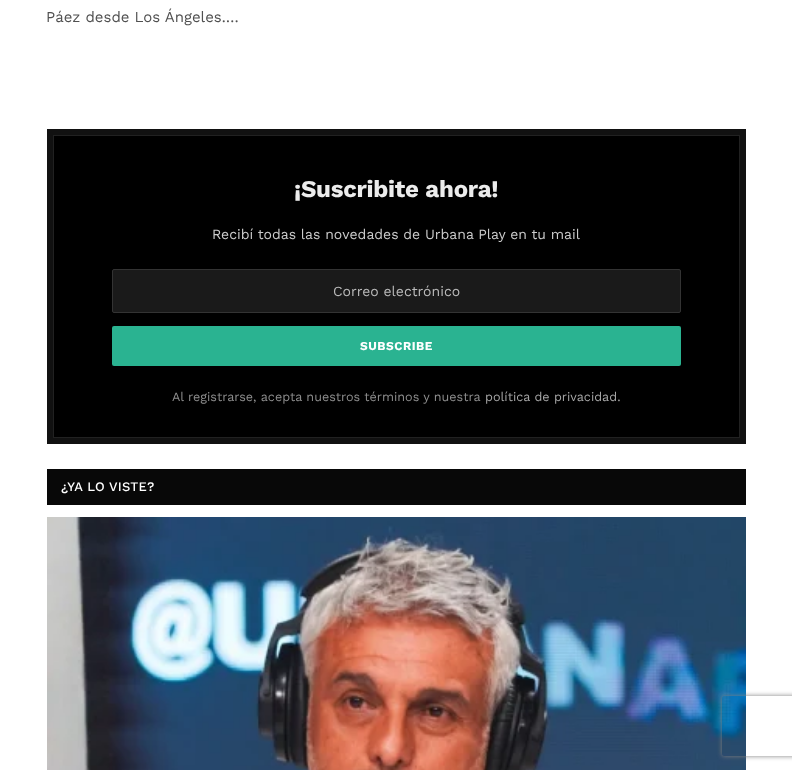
<?xml version="1.0" encoding="UTF-8"?>
<svg xmlns="http://www.w3.org/2000/svg" xmlns:xlink="http://www.w3.org/1999/xlink" width="792" height="770">
  <defs>
    <clipPath id="clip1"><path d="M 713 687 h 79 v 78 h -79 z m 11 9 h 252 c 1 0 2 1 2 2 v 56 c 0 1 -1 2 -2 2 h -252 c -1 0 -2 -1 -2 -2 v -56 c 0 -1 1 -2 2 -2 z" clip-rule="evenodd" /></clipPath>
  </defs>
  <rect width="100%" height="100%" fill="#ffffff" />
  <rect x="54" y="136" width="685" height="301" fill="#000000" />
  <rect x="50" y="132" width="693" height="309" fill="none" stroke="#111111" stroke-width="6" />
  <rect x="53.5" y="135.5" width="686" height="302" fill="none" stroke="#212121" />
  <rect x="112.5" y="269.5" width="568" height="43" rx="1.5" fill="#1a1a1a" stroke="#333333" />
  <rect x="112" y="326" width="569" height="40" rx="2" fill="#2ab391" />
  <rect x="47" y="469" width="699" height="36" fill="#080808" />
  <image x="47" y="517" width="699" height="253" xlink:href="image1.png" />
  <g clip-path="url(#clip1)">
    <rect x="722" y="696" width="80" height="60" rx="2" fill="#808080" filter="blur(2.5px)" />
  </g>
  <text x="46" y="22" style="font-family: Work Sans; font-size: 15px; fill: #505050">Páez desde Los Ángeles.…</text>
  <text x="294" y="197" style="font-family: Work Sans; font-size: 24px; font-weight: bold; letter-spacing: -0.25px; fill: #ececec">¡Suscribite ahora!</text>
  <text x="212" y="239" style="font-family: Work Sans; font-size: 14px; fill: #cccccc">Recibí todas las novedades de Urbana Play en tu mail</text>
  <text x="333" y="296" style="font-family: Work Sans; font-size: 14px; fill: #bbbbbb">Correo electrónico</text>
  <text x="360" y="350" style="font-family: Work Sans; font-size: 12px; font-weight: bold; letter-spacing: 0.5px; fill: #ffffff">SUBSCRIBE</text>
  <text x="172" y="401" style="font-family: Work Sans; font-size: 12.6px; fill: #8f8f8f">Al registrarse, acepta nuestros términos y nuestra</text>
  <text x="485" y="401" style="font-family: Work Sans; font-size: 12.6px; fill: #a8a8a8">política de privacidad.</text>
  <text x="61" y="491" style="font-family: Work Sans; font-size: 13px; font-weight: 500; letter-spacing: 0.25px; fill: #ffffff">¿YA LO VISTE?</text>
</svg>
